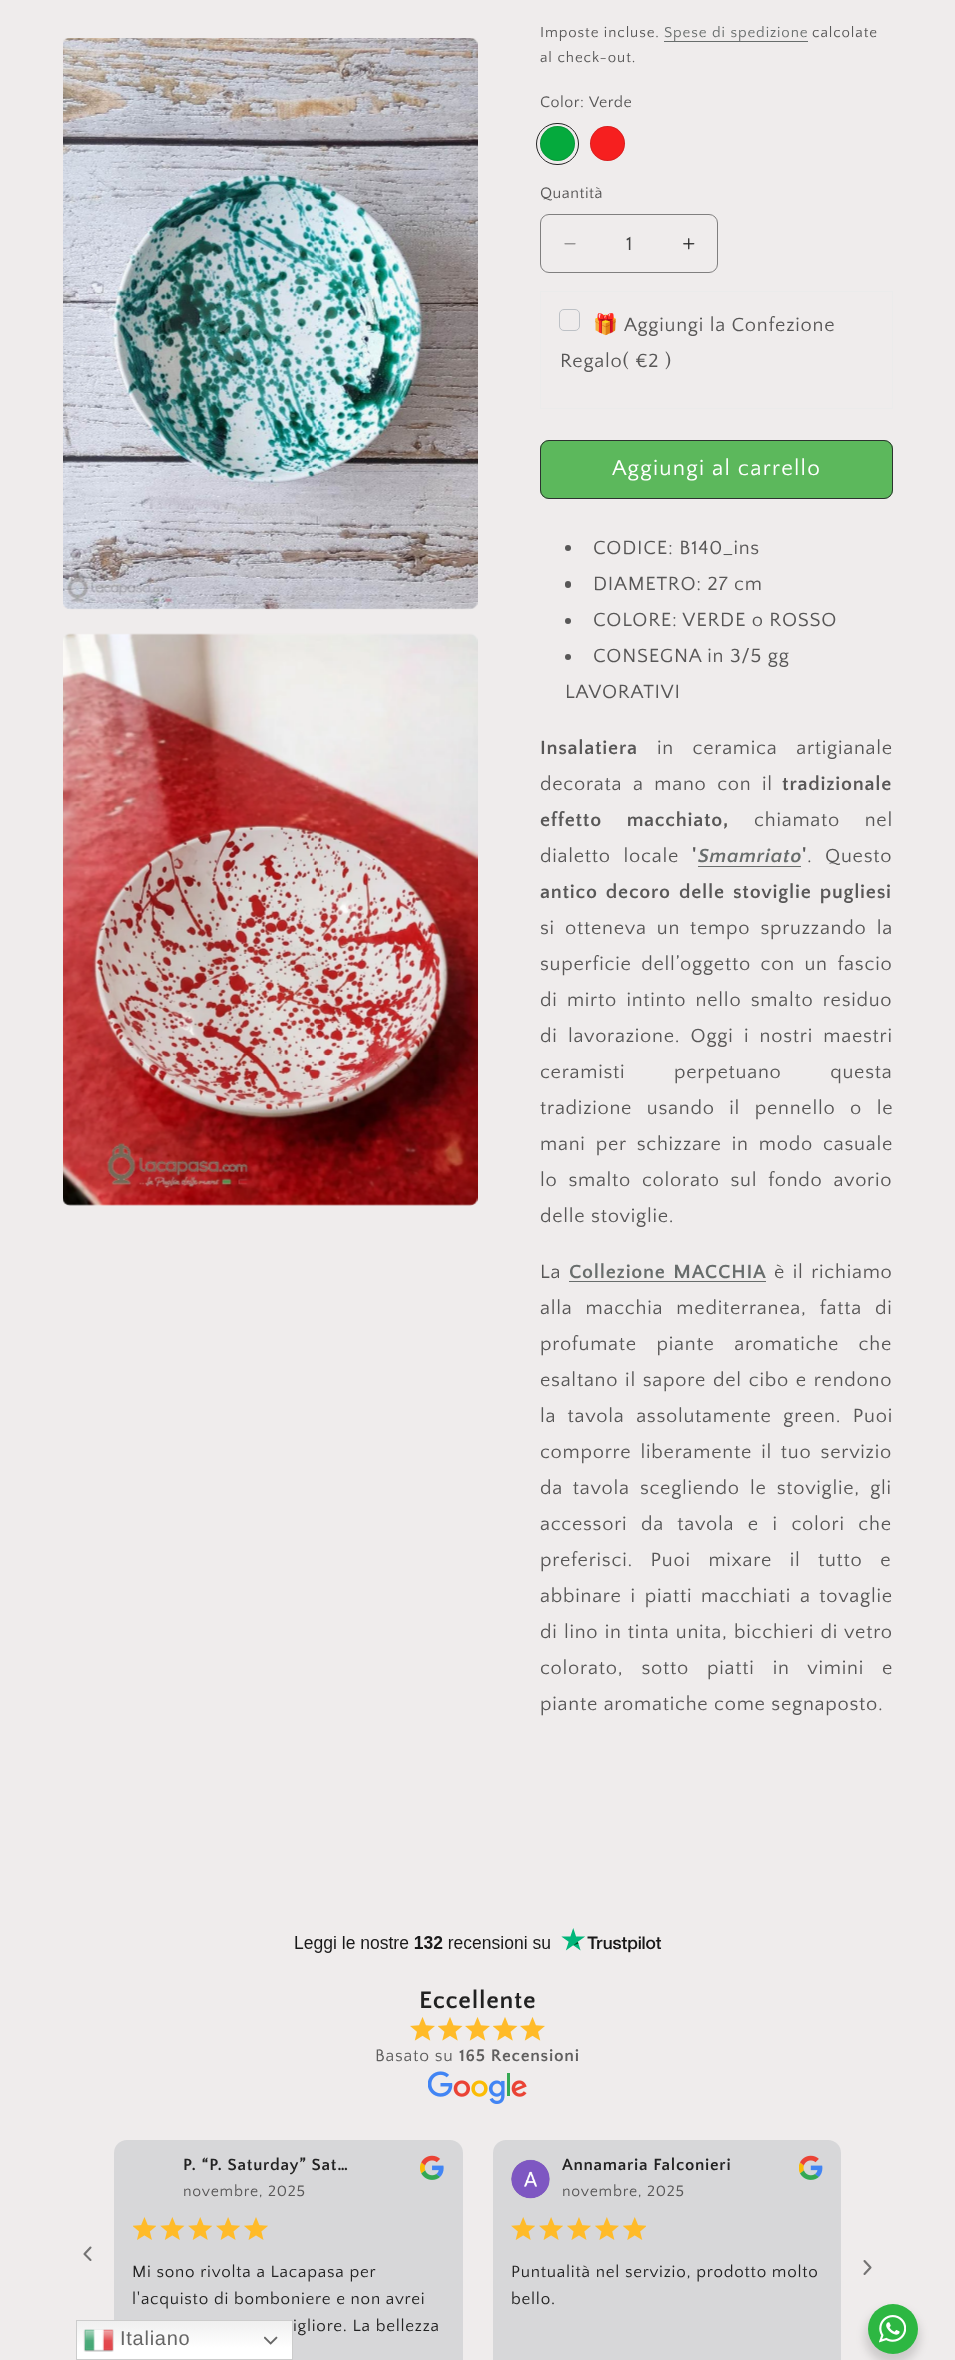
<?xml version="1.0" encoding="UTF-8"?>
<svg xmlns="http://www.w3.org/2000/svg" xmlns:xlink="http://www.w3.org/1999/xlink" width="955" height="2360">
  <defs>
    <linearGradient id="g1" gradientUnits="userSpaceOnUse" x1="184" y1="2320" x2="184" y2="2360"><stop offset="0" stop-color="#efefef" /><stop offset="0.7" stop-color="#ffffff" /></linearGradient>
  </defs>
  <rect width="100%" height="100%" fill="#efecec" />
  <image x="63" y="38" width="415" height="572" xlink:href="image1.png" />
  <image x="63" y="633" width="415" height="573" xlink:href="image2.png" />
  <rect x="664" y="41" width="144" height="1" fill="#686d6c" />
  <circle cx="557.5" cy="143.5" r="17.5" fill="#05aa3d" />
  <circle cx="557.5" cy="143.5" r="17" fill="none" stroke="#252525" stroke-opacity="0.15" />
  <rect x="536.5" y="123.5" width="42" height="41" rx="20.5" fill="none" stroke="#252525" />
  <circle cx="607.5" cy="143.5" r="17.5" fill="#f61f1f" />
  <circle cx="607.5" cy="143.5" r="17" fill="none" stroke="#252525" stroke-opacity="0.15" />
  <image x="564" y="243" width="12" height="2" xlink:href="image3.png" />
  <image x="683" y="238" width="12" height="12" xlink:href="image4.png" />
  <rect x="540.5" y="214.5" width="177" height="58" rx="8.5" fill="none" stroke="#807f7f" />
  <rect x="540.5" y="291.5" width="352" height="117" fill="none" stroke="#ebebeb" />
  <rect x="559.5" y="309.5" width="20" height="21" rx="4.5" fill="none" stroke="#bdc1c6" />
  <rect x="540" y="440" width="353" height="59" rx="9" fill="#5cb85c" />
  <rect x="540.5" y="440.5" width="352" height="58" rx="8.5" fill="none" stroke="#2c332f" />
  <circle cx="568" cy="548" r="3" fill="#585757" />
  <rect x="565" y="581" width="6" height="7" rx="3" fill="#585757" />
  <circle cx="568" cy="621" r="3" fill="#585757" />
  <circle cx="568" cy="657" r="3" fill="#585757" />
  <rect x="698" y="866" width="103" height="1" fill="#686d6c" />
  <rect x="569" y="1281" width="197" height="1" fill="#686d6c" />
  <image x="295" y="1928" width="367" height="25" xlink:href="image5.png" />
  <image x="410" y="2017" width="25" height="24" xlink:href="image6.png" />
  <image x="438" y="2017" width="25" height="24" xlink:href="image7.png" />
  <image x="465" y="2017" width="25" height="24" xlink:href="image6.png" />
  <image x="493" y="2017" width="25" height="24" xlink:href="image7.png" />
  <image x="520" y="2017" width="25" height="24" xlink:href="image6.png" />
  <image x="428" y="2071" width="99" height="33" xlink:href="image8.png" />
  <path d="M 90.5 2260 l -6 -6 l 6 -6.5" fill="none" stroke="#747373" stroke-width="2.1" stroke-linecap="round" stroke-linejoin="round" />
  <rect x="114" y="2140" width="349" height="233" rx="13" fill="#d7d7d9" />
  <image x="420" y="2155" width="24" height="25" xlink:href="image9.png" />
  <image x="133" y="2217" width="23" height="23" xlink:href="image10.png" />
  <image x="160" y="2217" width="25" height="23" xlink:href="image11.png" />
  <image x="188" y="2217" width="25" height="23" xlink:href="image12.png" />
  <image x="216" y="2217" width="24" height="23" xlink:href="image13.png" />
  <image x="244" y="2217" width="24" height="23" xlink:href="image14.png" />
  <rect x="493" y="2140" width="348" height="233" rx="13" fill="#d7d7d9" />
  <image x="511" y="2159" width="39" height="40" xlink:href="image15.png" />
  <image x="799" y="2155" width="24" height="25" xlink:href="image16.png" />
  <image x="511" y="2217" width="24" height="23" xlink:href="image17.png" />
  <image x="539" y="2217" width="24" height="23" xlink:href="image18.png" />
  <image x="567" y="2217" width="24" height="23" xlink:href="image19.png" />
  <image x="595" y="2217" width="24" height="23" xlink:href="image20.png" />
  <image x="623" y="2217" width="23" height="23" xlink:href="image21.png" />
  <path d="M 864.5 2274 l 6 -6.5 l -6 -6.5" fill="none" stroke="#747373" stroke-width="2.1" stroke-linecap="round" stroke-linejoin="round" />
  <rect x="865" y="2309" width="55" height="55" rx="27.5" fill="#000000" fill-opacity="0.14" filter="blur(5px)" />
  <circle cx="893" cy="2329" r="25" fill="#2db742" />
  <image x="879" y="2315" width="27" height="28" xlink:href="image22.png" />
  <rect x="77" y="2321" width="215" height="38" fill="url(#g1)" />
  <rect x="76.5" y="2320.5" width="216" height="39" fill="none" stroke="#cccccc" />
  <image x="83" y="2329" width="31" height="23" xlink:href="image23.png" />
  <image x="264" y="2336" width="14" height="9" xlink:href="image24.png" />
  <text x="540" y="37" style="font-family: Quattrocento Sans; font-size: 15px; letter-spacing: 0.9px; fill: #585757">Imposte incluse.</text>
  <text x="664" y="37" style="font-family: Quattrocento Sans; font-size: 15px; letter-spacing: 0.9px; fill: #686d6c">Spese di spedizione</text>
  <text x="812" y="37" style="font-family: Quattrocento Sans; font-size: 15px; letter-spacing: 0.9px; fill: #585757">calcolate</text>
  <text x="540" y="62" style="font-family: Quattrocento Sans; font-size: 15px; letter-spacing: 0.9px; fill: #585757">al check-out.</text>
  <text x="540" y="107" style="font-family: Quattrocento Sans; font-size: 16px; letter-spacing: 0.5px; fill: #585757">Color:</text>
  <text x="589" y="107" style="font-family: Quattrocento Sans; font-size: 16px; letter-spacing: 0.5px; fill: #585757">Verde</text>
  <text x="540" y="198" style="font-family: Quattrocento Sans; font-size: 16px; letter-spacing: 0.5px; fill: #585757">Quantità</text>
  <text x="626" y="250" style="font-family: Quattrocento Sans; font-size: 20px; fill: #434343">1</text>
  <text x="593" y="331" style="font-family: Noto Color Emoji; font-size: 20px; letter-spacing: 0.75px; fill: #585757">🎁</text>
  <text x="624" y="331" style="font-family: Quattrocento Sans; font-size: 20px; letter-spacing: 0.75px; fill: #585757">Aggiungi la Confezione</text>
  <text x="560" y="367" style="font-family: Quattrocento Sans; font-size: 20px; letter-spacing: 0.75px; fill: #585757">Regalo( €2 )</text>
  <text x="612" y="475" style="font-family: Quattrocento Sans; font-size: 22.5px; letter-spacing: 1.25px; fill: #ffffff">Aggiungi al carrello</text>
  <text x="593" y="554" style="font-family: Quattrocento Sans; font-size: 20px; letter-spacing: 0.75px; fill: #585757">CODICE: B140_ins</text>
  <text x="593" y="590" style="font-family: Quattrocento Sans; font-size: 20px; letter-spacing: 0.75px; fill: #585757">DIAMETRO: 27 cm</text>
  <text x="593" y="626" style="font-family: Quattrocento Sans; font-size: 20px; letter-spacing: 0.75px; fill: #585757">COLORE: VERDE o ROSSO</text>
  <text x="593" y="662" style="font-family: Quattrocento Sans; font-size: 20px; letter-spacing: 0.75px; fill: #585757">CONSEGNA in 3/5 gg</text>
  <text x="565" y="698" style="font-family: Quattrocento Sans; font-size: 20px; letter-spacing: 0.75px; fill: #585757">LAVORATIVI</text>
  <text x="540" y="754" style="font-family: Quattrocento Sans; font-size: 20px; font-weight: bold; letter-spacing: 0.75px; fill: #585757">Insalatiera</text>
  <text x="657" y="754" word-spacing="13" style="font-family: Quattrocento Sans; font-size: 20px; letter-spacing: 0.75px; fill: #585757">in ceramica artigianale</text>
  <text x="540" y="790" word-spacing="5" style="font-family: Quattrocento Sans; font-size: 20px; letter-spacing: 0.75px; fill: #585757">decorata a mano con il</text>
  <text x="782" y="790" style="font-family: Quattrocento Sans; font-size: 20px; font-weight: bold; letter-spacing: 0.75px; fill: #585757">tradizionale</text>
  <text x="540" y="826" word-spacing="19" style="font-family: Quattrocento Sans; font-size: 20px; font-weight: bold; letter-spacing: 0.75px; fill: #585757">effetto macchiato,</text>
  <text x="754" y="826" word-spacing="19" style="font-family: Quattrocento Sans; font-size: 20px; letter-spacing: 0.75px; fill: #585757">chiamato nel</text>
  <text x="540" y="862" word-spacing="7" style="font-family: Quattrocento Sans; font-size: 20px; letter-spacing: 0.75px; fill: #585757">dialetto locale</text>
  <text x="692" y="862" style="font-family: Quattrocento Sans; font-size: 20px; font-weight: bold; letter-spacing: 0.75px; fill: #585757">'</text>
  <text x="698" y="862" style="font-family: Quattrocento Sans; font-size: 20px; font-weight: bold; font-style: italic; letter-spacing: 0.75px; fill: #686d6c">Smamriato</text>
  <text x="802" y="862" style="font-family: Quattrocento Sans; font-size: 20px; font-weight: bold; letter-spacing: 0.75px; fill: #585757">'</text>
  <text x="807" y="862" word-spacing="7" style="font-family: Quattrocento Sans; font-size: 20px; letter-spacing: 0.75px; fill: #585757">. Questo</text>
  <text x="540" y="898" word-spacing="2.5" style="font-family: Quattrocento Sans; font-size: 20px; font-weight: bold; letter-spacing: 0.75px; fill: #585757">antico decoro delle stoviglie pugliesi</text>
  <text x="540" y="934" word-spacing="4.5" style="font-family: Quattrocento Sans; font-size: 20px; letter-spacing: 0.75px; fill: #585757">si otteneva un tempo spruzzando la</text>
  <text x="540" y="970" word-spacing="4" style="font-family: Quattrocento Sans; font-size: 20px; letter-spacing: 0.75px; fill: #585757">superficie dell’oggetto con un fascio</text>
  <text x="540" y="1006" word-spacing="3.75" style="font-family: Quattrocento Sans; font-size: 20px; letter-spacing: 0.75px; fill: #585757">di mirto intinto nello smalto residuo</text>
  <text x="540" y="1042" word-spacing="4.75" style="font-family: Quattrocento Sans; font-size: 20px; letter-spacing: 0.75px; fill: #585757">di lavorazione. Oggi i nostri maestri</text>
  <text x="540" y="1078" word-spacing="43" style="font-family: Quattrocento Sans; font-size: 20px; letter-spacing: 0.75px; fill: #585757">ceramisti perpetuano questa</text>
  <text x="540" y="1114" word-spacing="9" style="font-family: Quattrocento Sans; font-size: 20px; letter-spacing: 0.75px; fill: #585757">tradizione usando il pennello o le</text>
  <text x="540" y="1150" word-spacing="4.5" style="font-family: Quattrocento Sans; font-size: 20px; letter-spacing: 0.75px; fill: #585757">mani per schizzare in modo casuale</text>
  <text x="540" y="1186" word-spacing="5.25" style="font-family: Quattrocento Sans; font-size: 20px; letter-spacing: 0.75px; fill: #585757">lo smalto colorato sul fondo avorio</text>
  <text x="540" y="1222" style="font-family: Quattrocento Sans; font-size: 20px; letter-spacing: 0.75px; fill: #585757">delle stoviglie.</text>
  <text x="540" y="1278" style="font-family: Quattrocento Sans; font-size: 20px; letter-spacing: 0.75px; fill: #585757">La</text>
  <text x="569" y="1278" word-spacing="2" style="font-family: Quattrocento Sans; font-size: 20px; font-weight: bold; letter-spacing: 0.75px; fill: #686d6c">Collezione MACCHIA</text>
  <text x="774" y="1278" word-spacing="2" style="font-family: Quattrocento Sans; font-size: 20px; letter-spacing: 0.75px; fill: #585757">è il richiamo</text>
  <text x="540" y="1314" word-spacing="7.5" style="font-family: Quattrocento Sans; font-size: 20px; letter-spacing: 0.75px; fill: #585757">alla macchia mediterranea, fatta di</text>
  <text x="540" y="1350" word-spacing="14" style="font-family: Quattrocento Sans; font-size: 20px; letter-spacing: 0.75px; fill: #585757">profumate piante aromatiche che</text>
  <text x="540" y="1386" word-spacing="1.25" style="font-family: Quattrocento Sans; font-size: 20px; letter-spacing: 0.75px; fill: #585757">esaltano il sapore del cibo e rendono</text>
  <text x="540" y="1422" word-spacing="6" style="font-family: Quattrocento Sans; font-size: 20px; letter-spacing: 0.75px; fill: #585757">la tavola assolutamente green. Puoi</text>
  <text x="540" y="1458" word-spacing="3.5" style="font-family: Quattrocento Sans; font-size: 20px; letter-spacing: 0.75px; fill: #585757">comporre liberamente il tuo servizio</text>
  <text x="540" y="1494" word-spacing="4.5" style="font-family: Quattrocento Sans; font-size: 20px; letter-spacing: 0.75px; fill: #585757">da tavola scegliendo le stoviglie, gli</text>
  <text x="540" y="1530" word-spacing="8" style="font-family: Quattrocento Sans; font-size: 20px; letter-spacing: 0.75px; fill: #585757">accessori da tavola e i colori che</text>
  <text x="540" y="1566" word-spacing="12" style="font-family: Quattrocento Sans; font-size: 20px; letter-spacing: 0.75px; fill: #585757">preferisci. Puoi mixare il tutto e</text>
  <text x="540" y="1602" word-spacing="3.25" style="font-family: Quattrocento Sans; font-size: 20px; letter-spacing: 0.75px; fill: #585757">abbinare i piatti macchiati a tovaglie</text>
  <text x="540" y="1638" word-spacing="0.75" style="font-family: Quattrocento Sans; font-size: 20px; letter-spacing: 0.75px; fill: #585757">di lino in tinta unita, bicchieri di vetro</text>
  <text x="540" y="1674" word-spacing="12.5" style="font-family: Quattrocento Sans; font-size: 20px; letter-spacing: 0.75px; fill: #585757">colorato, sotto piatti in vimini e</text>
  <text x="540" y="1710" style="font-family: Quattrocento Sans; font-size: 20px; letter-spacing: 0.75px; fill: #585757">piante aromatiche come segnaposto.</text>
  <text x="419" y="2008" style="font-family: Quattrocento Sans; font-size: 25px; font-weight: bold; letter-spacing: 0.75px; fill: #222222">Eccellente</text>
  <text x="375" y="2061" style="font-family: Quattrocento Sans; font-size: 17.5px; letter-spacing: 0.75px; fill: #605f5f">Basato su</text>
  <text x="459" y="2061" style="font-family: Quattrocento Sans; font-size: 17.5px; font-weight: bold; letter-spacing: 0.75px; fill: #605f5f">165 Recensioni</text>
  <text x="183" y="2170" style="font-family: Quattrocento Sans; font-size: 17px; font-weight: bold; letter-spacing: 0.75px; fill: #222222">P. “P. Saturday” Sat…</text>
  <text x="183" y="2196" style="font-family: Quattrocento Sans; font-size: 15.75px; letter-spacing: 0.75px; fill: #585757">novembre, 2025</text>
  <text x="132" y="2277" style="font-family: Quattrocento Sans; font-size: 17px; letter-spacing: 0.75px; fill: #222222">Mi sono rivolta a Lacapasa per</text>
  <text x="132" y="2304" style="font-family: Quattrocento Sans; font-size: 17px; letter-spacing: 0.75px; fill: #222222">l'acquisto di bomboniere e non avrei</text>
  <text x="293" y="2331" style="font-family: Quattrocento Sans; font-size: 17px; letter-spacing: 0.75px; fill: #222222">igliore. La bellezza</text>
  <text x="562" y="2170" style="font-family: Quattrocento Sans; font-size: 17px; font-weight: bold; letter-spacing: 0.75px; fill: #222222">Annamaria Falconieri</text>
  <text x="562" y="2196" style="font-family: Quattrocento Sans; font-size: 15.75px; letter-spacing: 0.75px; fill: #585757">novembre, 2025</text>
  <text x="511" y="2277" style="font-family: Quattrocento Sans; font-size: 17px; letter-spacing: 0.75px; fill: #222222">Puntualità nel servizio, prodotto molto</text>
  <text x="511" y="2304" style="font-family: Quattrocento Sans; font-size: 17px; letter-spacing: 0.75px; fill: #222222">bello.</text>
  <text x="120" y="2345" style="font-family: Liberation Sans; font-size: 20px; letter-spacing: 0.75px; fill: #666666">Italiano</text>
</svg>
